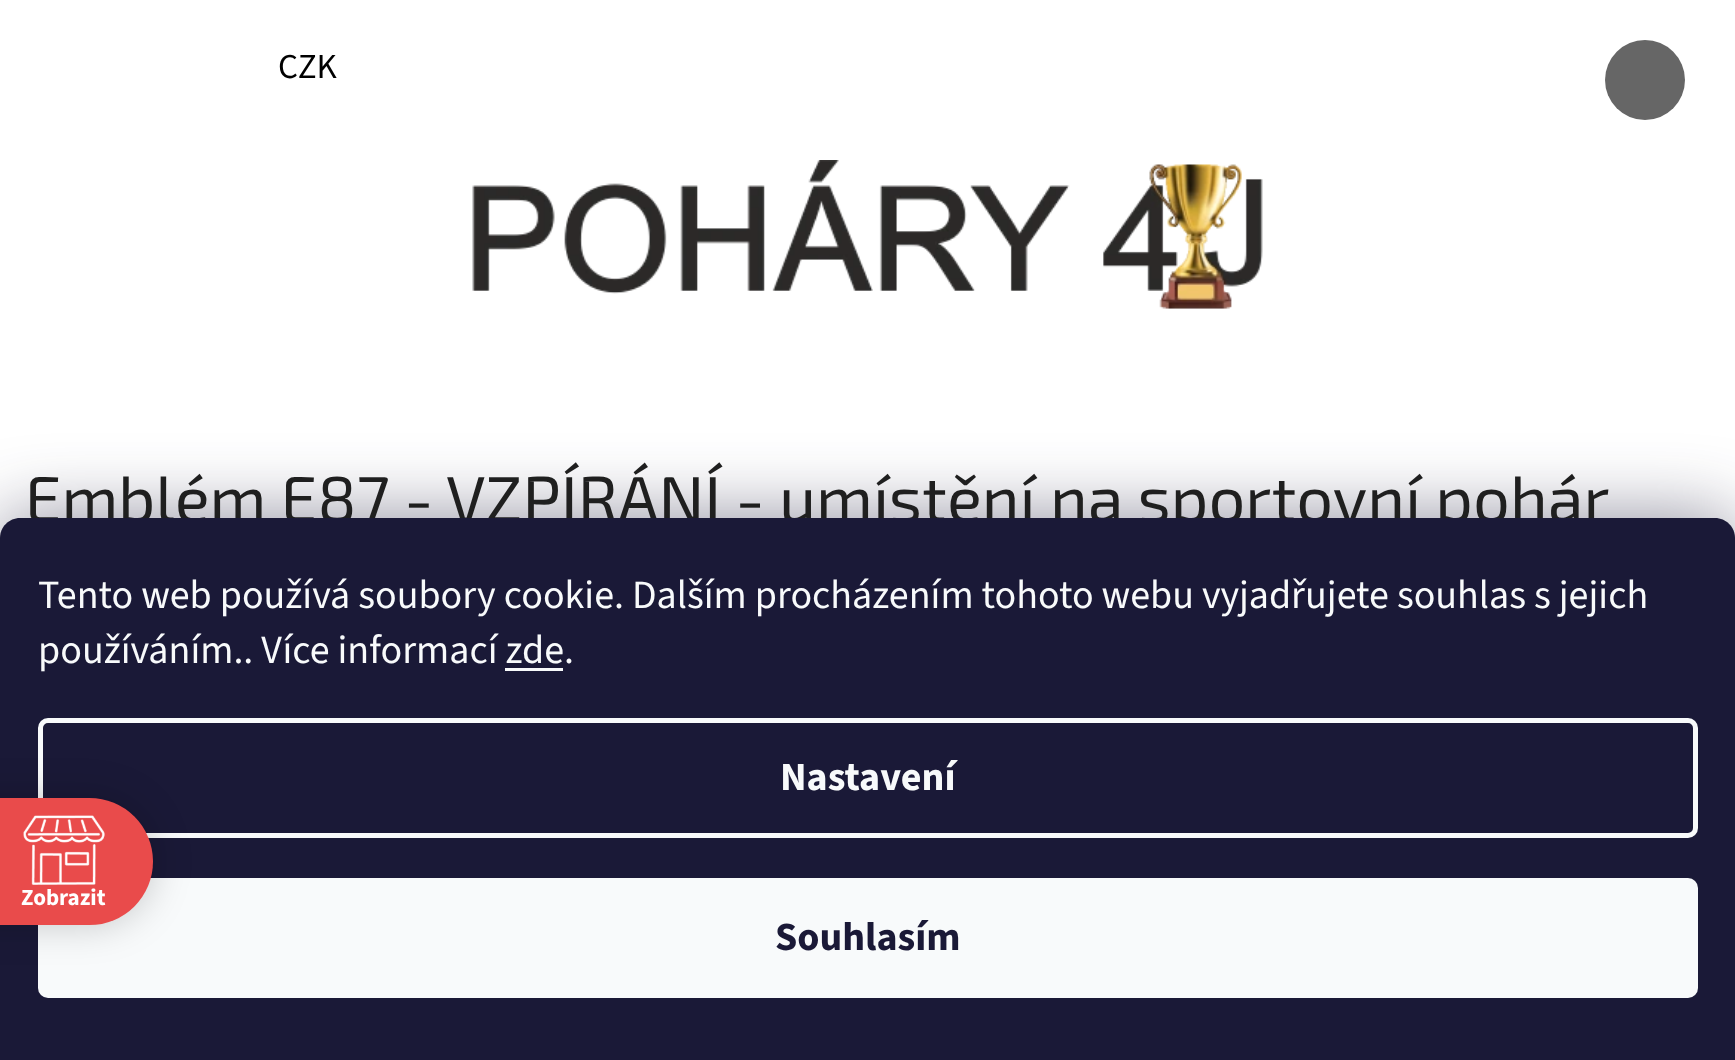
<?xml version="1.0" encoding="UTF-8"?>
<svg xmlns="http://www.w3.org/2000/svg" xmlns:xlink="http://www.w3.org/1999/xlink" width="1735" height="1060">
  <rect width="100%" height="100%" fill="#ffffff" />
  <circle cx="1645" cy="80" r="40" fill="#666666" />
  <image x="472" y="160" width="791" height="149" xlink:href="image1.png" />
  <rect y="518" width="1735" height="542" rx="20" fill="#1b1939" fill-opacity="0.5" filter="blur(37.5px)" />
  <text x="278" y="78" style="font-family: 'Source Sans 3'; font-size: 35px; fill: #000000">CZK</text>
  <text x="25" y="522" word-spacing="-0.25" style="font-family: 'Exo 2'; font-size: 65px; fill: #1f1f1f">Emblém E87 - VZPÍRÁNÍ - umístění na sportovní pohár</text>
  <path d="M 20 518 h 1695 c 11 0 20 9 20 20 v 522 h -1735 v -522 c 0 -11 9 -20 20 -20 z" fill="#1a1937" />
  <text x="38" y="608" style="font-family: 'Source Sans 3'; font-size: 40px; fill: #f8fafb">Tento web používá soubory cookie. Dalším procházením tohoto webu vyjadřujete souhlas s jejich</text>
  <text x="38" y="663" style="font-family: 'Source Sans 3'; font-size: 40px; fill: #f8fafb">používáním.. Více informací zde.</text>
  <rect x="505" y="668" width="58" height="3" fill="#f8fafb" />
  <rect x="40.5" y="720.5" width="1655" height="115" rx="7.5" fill="none" stroke="#f8fafb" stroke-width="5" />
  <text x="780" y="790" style="font-family: 'Source Sans 3'; font-size: 40px; font-weight: bold; fill: #f8fafb">Nastavení</text>
  <rect x="38" y="878" width="1660" height="120" rx="10" fill="#f8fafb" />
  <text x="775" y="950" style="font-family: 'Source Sans 3'; font-size: 40px; font-weight: bold; fill: #1a1937">Souhlasím</text>
  <rect x="-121" y="798" width="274" height="127" rx="63.5" fill="#000000" fill-opacity="0.2" filter="blur(19px)" />
  <rect x="-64" y="798" width="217" height="127" rx="63.5" fill="#e94b4b" />
  <image x="23" y="815" width="82" height="70" xlink:href="image2.png" />
  <text x="21" y="905" style="font-family: 'Source Sans 3'; font-size: 23px; font-weight: bold; fill: #ffffff">Zobrazit</text>
</svg>
